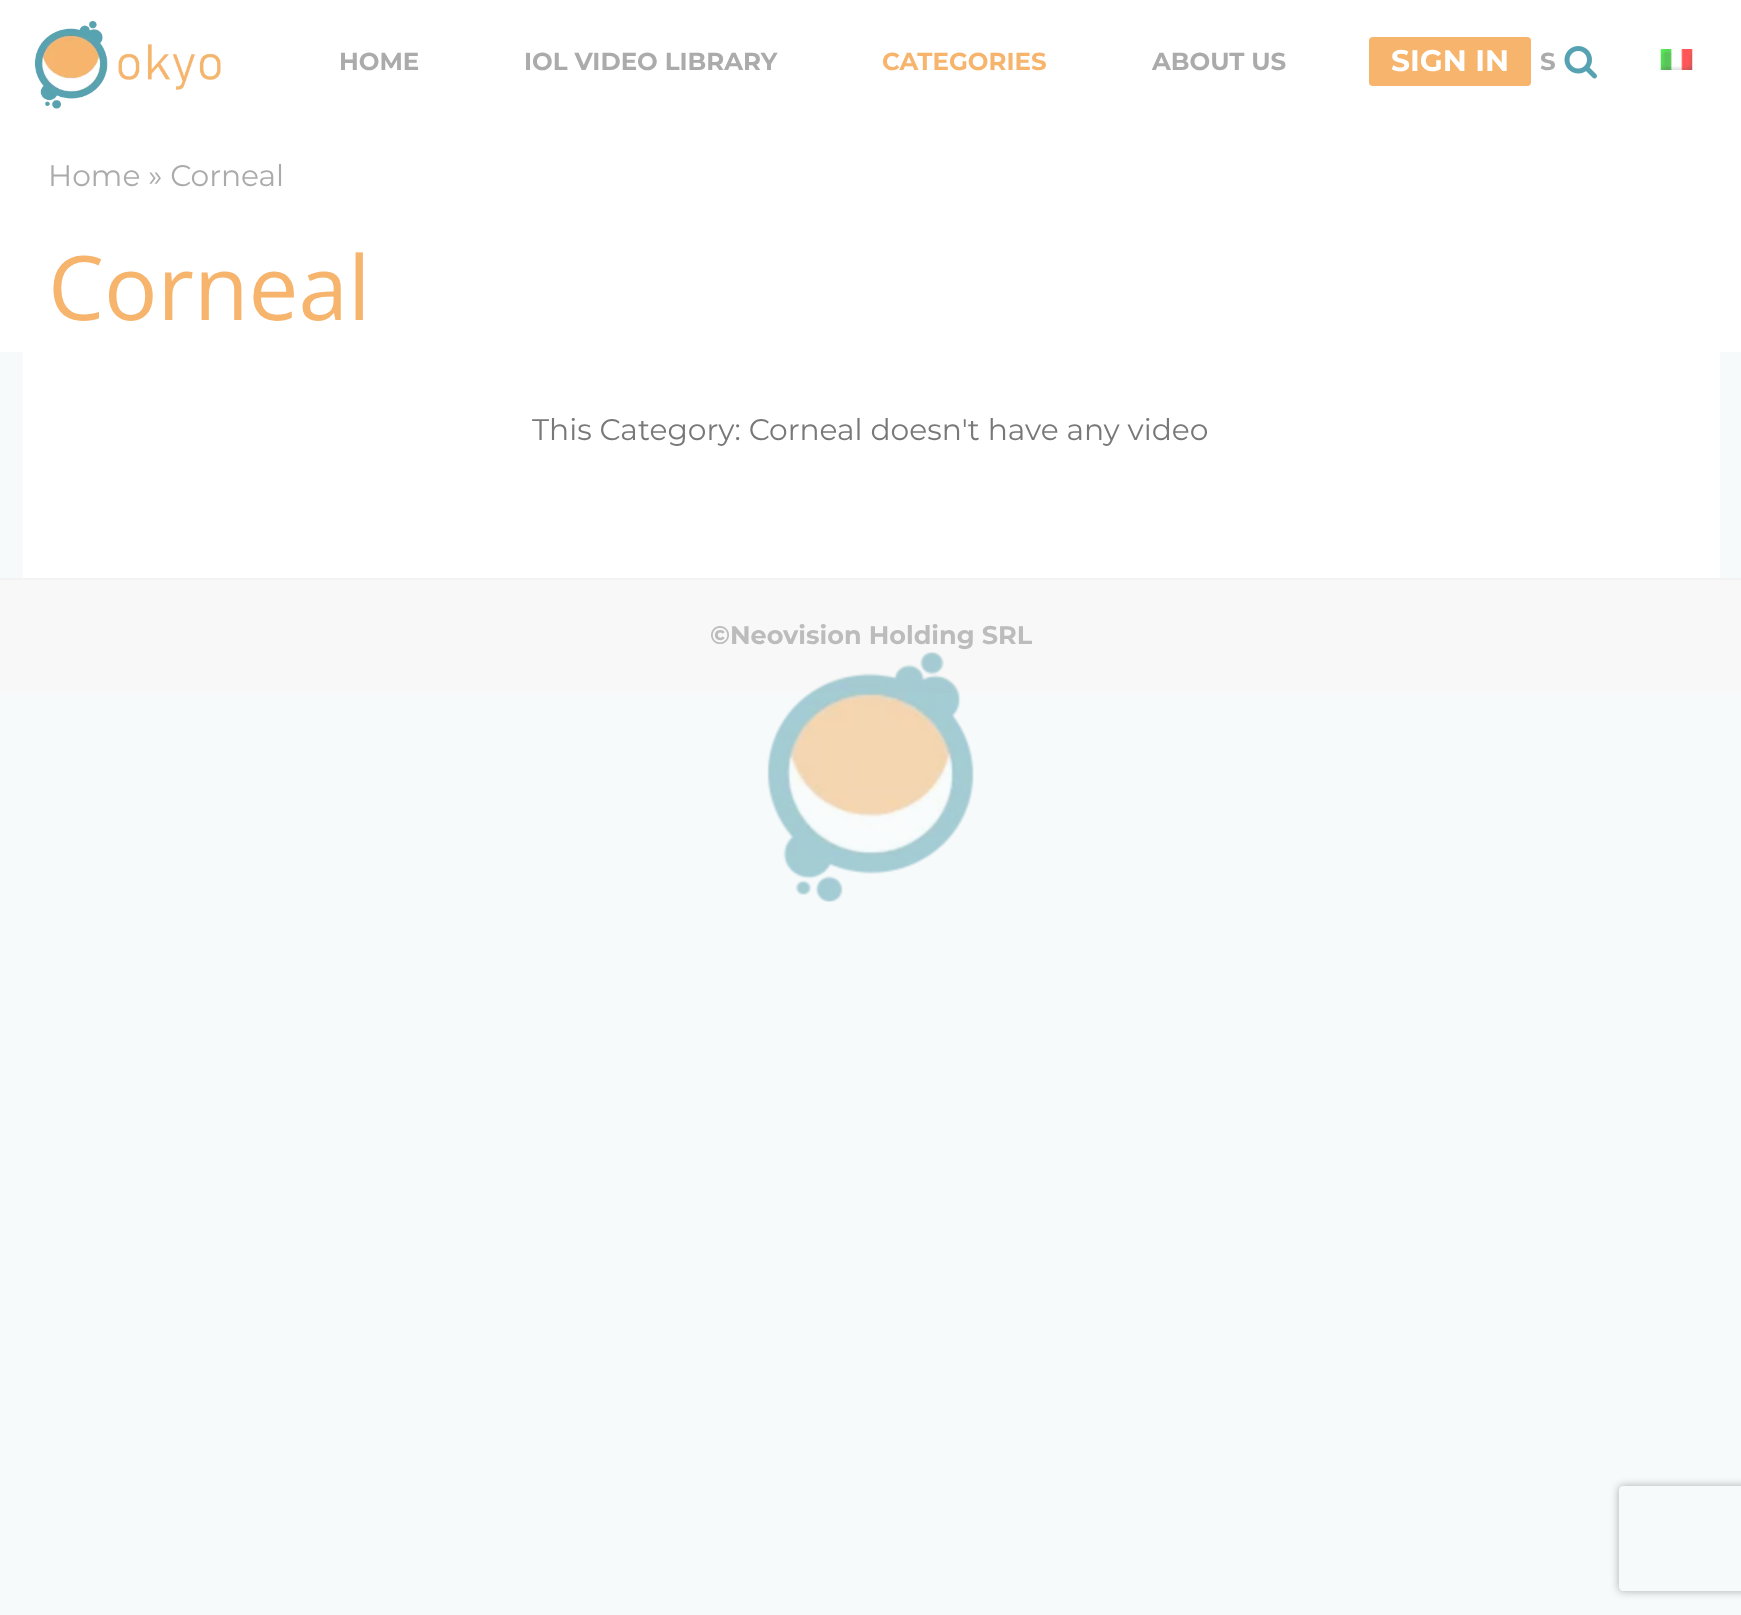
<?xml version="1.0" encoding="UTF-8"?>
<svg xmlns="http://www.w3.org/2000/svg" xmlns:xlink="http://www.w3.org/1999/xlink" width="1741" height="1615">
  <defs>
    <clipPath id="clip1"><path d="M 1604 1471 h 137 v 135 h -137 z m 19 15 h 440 c 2 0 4 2 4 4 v 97 c 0 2 -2 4 -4 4 h -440 c -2 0 -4 -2 -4 -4 v -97 c 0 -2 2 -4 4 -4 z" clip-rule="evenodd" /></clipPath>
  </defs>
  <rect width="100%" height="100%" fill="#f6fafb" />
  <rect width="1741" height="352" fill="#ffffff" />
  <rect x="1369" y="37" width="162" height="49" rx="4" fill="#f6b46d" />
  <image x="1564" y="46" width="33" height="33" xlink:href="image1.png" />
  <image x="35" y="21" width="186" height="88" xlink:href="image2.png" />
  <image x="1660" y="49" width="33" height="21" xlink:href="image3.png" />
  <rect x="23" y="352" width="1697" height="226" fill="#ffffff" />
  <rect y="580" width="1741" height="113" fill="#f8f8f8" />
  <rect y="578" width="1741" height="2" fill="#f3f3f3" />
  <image x="767" y="652" width="207" height="250" xlink:href="image4.png" />
  <g clip-path="url(#clip1)">
    <rect x="1619" y="1486" width="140" height="105" rx="4" fill="#ababab" filter="blur(4.5px)" />
  </g>
  <text x="1391" y="71" style="font-family: Montserrat; font-size: 29.75px; font-weight: bold; fill: #ffffff">SIGN IN</text>
  <text x="339" y="70" style="font-family: Montserrat; font-size: 24.5px; font-weight: bold; fill: #ababab">HOME</text>
  <text x="524" y="70" style="font-family: Montserrat; font-size: 24.5px; font-weight: bold; fill: #ababab">IOL VIDEO LIBRARY</text>
  <text x="882" y="70" style="font-family: Montserrat; font-size: 24.5px; font-weight: bold; fill: #f6b46d">CATEGORIES</text>
  <text x="1152" y="70" style="font-family: Montserrat; font-size: 24.5px; font-weight: bold; fill: #ababab">ABOUT US</text>
  <text x="1540" y="70" style="font-family: Montserrat; font-size: 24.5px; font-weight: bold; fill: #ababab">S</text>
  <text x="48" y="186" style="font-family: Montserrat; font-size: 29.75px; fill: #ababab">Home » Corneal</text>
  <text x="48" y="320" style="font-family: Open Sans; font-size: 89px; fill: #f6b46d">Corneal</text>
  <text x="532" y="440" style="font-family: Montserrat; font-size: 29.75px; fill: #787878">This Category: Corneal doesn't have any video</text>
  <text x="710" y="644" style="font-family: Montserrat; font-size: 25.5px; font-weight: bold; fill: #bcbcbc">©Neovision Holding SRL</text>
</svg>
